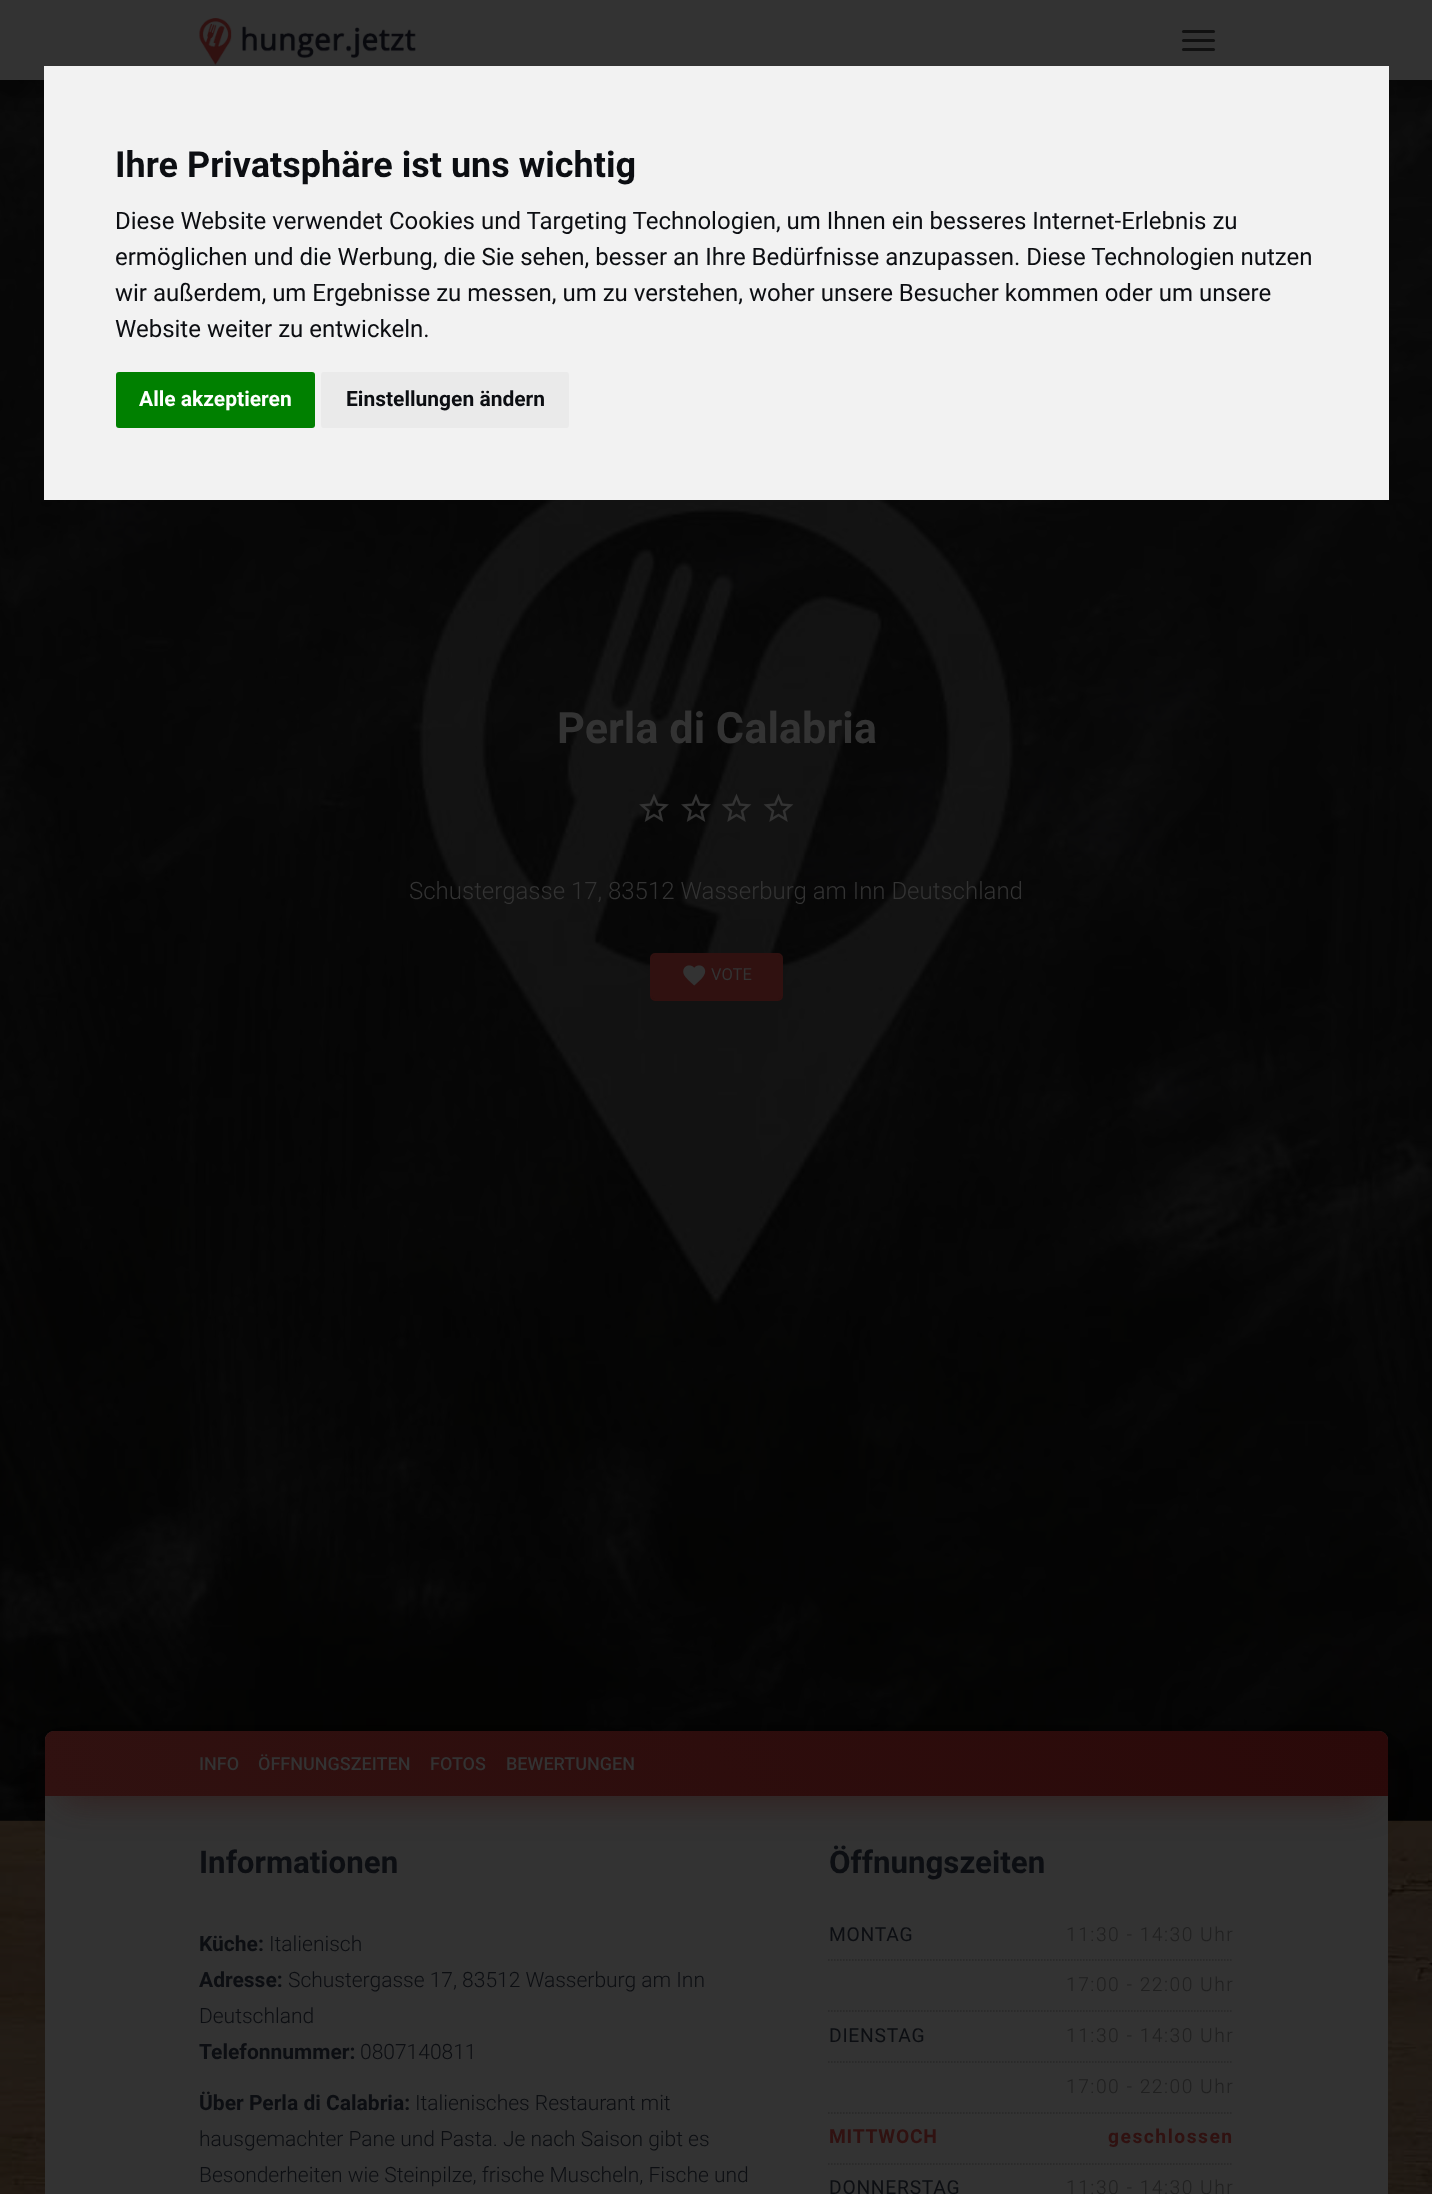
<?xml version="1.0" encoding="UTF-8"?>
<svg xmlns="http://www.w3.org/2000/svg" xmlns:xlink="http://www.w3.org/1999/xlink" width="1432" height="2194">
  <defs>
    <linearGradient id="g1" gradientUnits="userSpaceOnUse" x1="199" y1="2062" x2="1234" y2="1465"><stop offset="0" stop-color="#301110" /><stop offset="1" stop-color="#2a0909" /></linearGradient>
  </defs>
  <rect width="100%" height="100%" fill="#ffffff" />
  <image x="0" y="1820" width="1432" height="374" xlink:href="image1.png" />
  <image x="0" y="80" width="1432" height="1741" xlink:href="image3.png" />
  <rect y="80" width="1432" height="1741" fill="#000000" fill-opacity="0.5" />
  <rect x="8" y="18" width="1417" height="65" fill="#000000" fill-opacity="0.15" filter="blur(7.5px)" />
  <rect y="6" width="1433" height="80" fill="#000000" fill-opacity="0.12" filter="blur(13.5px)" />
  <rect width="1432" height="80" fill="#333333" />
  <image x="199" y="18" width="217" height="47" xlink:href="image2.png" />
  <rect x="1182" y="30" width="33" height="3" rx="1.5" fill="#111111" />
  <rect x="1182" y="39" width="33" height="3" rx="1.5" fill="#111111" />
  <rect x="1182" y="48" width="33" height="3" rx="1.5" fill="#111111" />
  <rect x="44" y="66" width="1345" height="434" fill="#f2f2f2" />
  <rect x="116" y="372" width="199" height="56" rx="3" fill="#008000" />
  <rect x="321" y="372" width="248" height="56" rx="3" fill="#eaeaea" />
  <image x="639" y="793" width="30" height="29" xlink:href="image4.png" />
  <image x="681" y="793" width="30" height="29" xlink:href="image5.png" />
  <image x="721" y="793" width="31" height="29" xlink:href="image6.png" />
  <image x="763" y="793" width="31" height="29" xlink:href="image7.png" />
  <rect x="651" y="954" width="131" height="46" rx="4" fill="#301110" stroke="#301110" stroke-width="2" />
  <image x="683" y="965" width="23" height="21" xlink:href="image8.png" />
  <rect x="45" y="1731" width="1343" height="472" rx="9" fill="#333333" />
  <rect x="62" y="1767" width="1309" height="32" fill="#310d0b" fill-opacity="0.6" filter="blur(18px)" />
  <path d="M 54 1731 h 1325 c 5 0 9 4 9 9 v 56 h -1343 v -56 c 0 -5 4 -9 9 -9 z" fill="url(#g1)" />
  <path d="M 828 1960 h 405" fill="none" stroke="#292929" stroke-width="1.5" stroke-dasharray="1.5 1.5" />
  <path d="M 828 2011 h 405" fill="none" stroke="#292929" stroke-width="1.5" stroke-dasharray="1.5 1.5" />
  <path d="M 828 2062 h 405" fill="none" stroke="#292929" stroke-width="1.5" stroke-dasharray="1.5 1.5" />
  <path d="M 828 2113 h 405" fill="none" stroke="#292929" stroke-width="1.5" stroke-dasharray="1.5 1.5" />
  <path d="M 828 2164 h 405" fill="none" stroke="#292929" stroke-width="1.5" stroke-dasharray="1.5 1.5" />
  <text x="115" y="177" style="font-family: Roboto; font-size: 36px; font-weight: bold; fill: #0c0e12">Ihre Privatsphäre ist uns wichtig</text>
  <text x="115" y="229" style="font-family: Roboto; font-size: 24px; fill: #0c0e12">Diese Website verwendet Cookies und Targeting Technologien, um Ihnen ein besseres Internet-Erlebnis zu</text>
  <text x="115" y="265" style="font-family: Roboto; font-size: 24px; fill: #0c0e12">ermöglichen und die Werbung, die Sie sehen, besser an Ihre Bedürfnisse anzupassen. Diese Technologien nutzen</text>
  <text x="115" y="301" style="font-family: Roboto; font-size: 24px; fill: #0c0e12">wir außerdem, um Ergebnisse zu messen, um zu verstehen, woher unsere Besucher kommen oder um unsere</text>
  <text x="115" y="337" style="font-family: Roboto; font-size: 24px; fill: #0c0e12">Website weiter zu entwickeln.</text>
  <text x="139" y="406" style="font-family: Roboto; font-size: 21px; font-weight: bold; fill: #ffffff">Alle akzeptieren</text>
  <text x="346" y="406" style="font-family: Roboto; font-size: 21px; font-weight: bold; fill: #0c0e12">Einstellungen ändern</text>
  <text x="557" y="743" style="font-family: Roboto; font-size: 43.25px; font-weight: bold; fill: #333333">Perla di Calabria</text>
  <text x="409" y="899" style="font-family: Roboto; font-size: 24px; font-weight: 300; fill: #333333">Schustergasse 17, 83512 Wasserburg am Inn Deutschland</text>
  <text x="711" y="980" style="font-family: Roboto; font-size: 16.5px; fill: #333333">VOTE</text>
  <text x="199" y="1770" style="font-family: Roboto; font-size: 18px; font-weight: 500; fill: #333333">INFO</text>
  <text x="258" y="1770" style="font-family: Roboto; font-size: 18px; font-weight: 500; fill: #333333">ÖFFNUNGSZEITEN</text>
  <text x="430" y="1770" style="font-family: Roboto; font-size: 18px; font-weight: 500; fill: #333333">FOTOS</text>
  <text x="506" y="1770" style="font-family: Roboto; font-size: 18px; font-weight: 500; fill: #333333">BEWERTUNGEN</text>
  <text x="199" y="1873" style="font-family: Roboto; font-size: 31.25px; font-weight: bold; fill: #0c0e12">Informationen</text>
  <text x="199" y="1951" style="font-family: Roboto; font-size: 21px; font-weight: bold; fill: #0c0e12">Küche:</text>
  <text x="269" y="1951" style="font-family: Roboto; font-size: 21px; font-weight: 300; fill: #0c0e12">Italienisch</text>
  <text x="199" y="1987" style="font-family: Roboto; font-size: 21px; font-weight: bold; fill: #0c0e12">Adresse:</text>
  <text x="288" y="1987" style="font-family: Roboto; font-size: 21px; font-weight: 300; fill: #0c0e12">Schustergasse 17, 83512 Wasserburg am Inn</text>
  <text x="199" y="2023" style="font-family: Roboto; font-size: 21px; font-weight: 300; fill: #0c0e12">Deutschland</text>
  <text x="199" y="2059" style="font-family: Roboto; font-size: 21px; font-weight: bold; fill: #0c0e12">Telefonnummer:</text>
  <text x="360" y="2059" style="font-family: Roboto; font-size: 21px; font-weight: 300; fill: #0c0e12">0807140811</text>
  <text x="199" y="2110" style="font-family: Roboto; font-size: 21px; font-weight: bold; fill: #0c0e12">Über Perla di Calabria:</text>
  <text x="415" y="2110" style="font-family: Roboto; font-size: 21px; font-weight: 300; fill: #0c0e12">Italienisches Restaurant mit</text>
  <text x="199" y="2146" style="font-family: Roboto; font-size: 21px; font-weight: 300; fill: #0c0e12">hausgemachter Pane und Pasta. Je nach Saison gibt es</text>
  <text x="199" y="2182" style="font-family: Roboto; font-size: 21px; font-weight: 300; fill: #0c0e12">Besonderheiten wie Steinpilze, frische Muscheln, Fische und</text>
  <text x="829" y="1873" style="font-family: Roboto; font-size: 31.25px; font-weight: bold; fill: #0c0e12">Öffnungszeiten</text>
  <text x="829" y="1941" style="font-family: Roboto; font-size: 19.25px; letter-spacing: 0.75px; fill: #0c0e12">MONTAG</text>
  <text x="1066" y="1941" style="font-family: Roboto; font-size: 19.25px; font-weight: 300; letter-spacing: 1.5px; fill: #202020">11:30 - 14:30 Uhr</text>
  <text x="1066" y="1991" style="font-family: Roboto; font-size: 19.25px; font-weight: 300; letter-spacing: 1.5px; fill: #202020">17:00 - 22:00 Uhr</text>
  <text x="829" y="2042" style="font-family: Roboto; font-size: 19.25px; letter-spacing: 0.75px; fill: #0c0e12">DIENSTAG</text>
  <text x="1066" y="2042" style="font-family: Roboto; font-size: 19.25px; font-weight: 300; letter-spacing: 1.5px; fill: #202020">11:30 - 14:30 Uhr</text>
  <text x="1066" y="2093" style="font-family: Roboto; font-size: 19.25px; font-weight: 300; letter-spacing: 1.5px; fill: #202020">17:00 - 22:00 Uhr</text>
  <text x="829" y="2143" style="font-family: Roboto; font-size: 19.25px; font-weight: bold; letter-spacing: 0.75px; fill: #301110">MITTWOCH</text>
  <text x="1108" y="2143" style="font-family: Roboto; font-size: 19.25px; font-weight: bold; letter-spacing: 1.5px; fill: #301110">geschlossen</text>
  <text x="829" y="2194" style="font-family: Roboto; font-size: 19.25px; letter-spacing: 0.75px; fill: #0c0e12">DONNERSTAG</text>
  <text x="1066" y="2194" style="font-family: Roboto; font-size: 19.25px; font-weight: 300; letter-spacing: 1.5px; fill: #202020">11:30 - 14:30 Uhr</text>
</svg>
